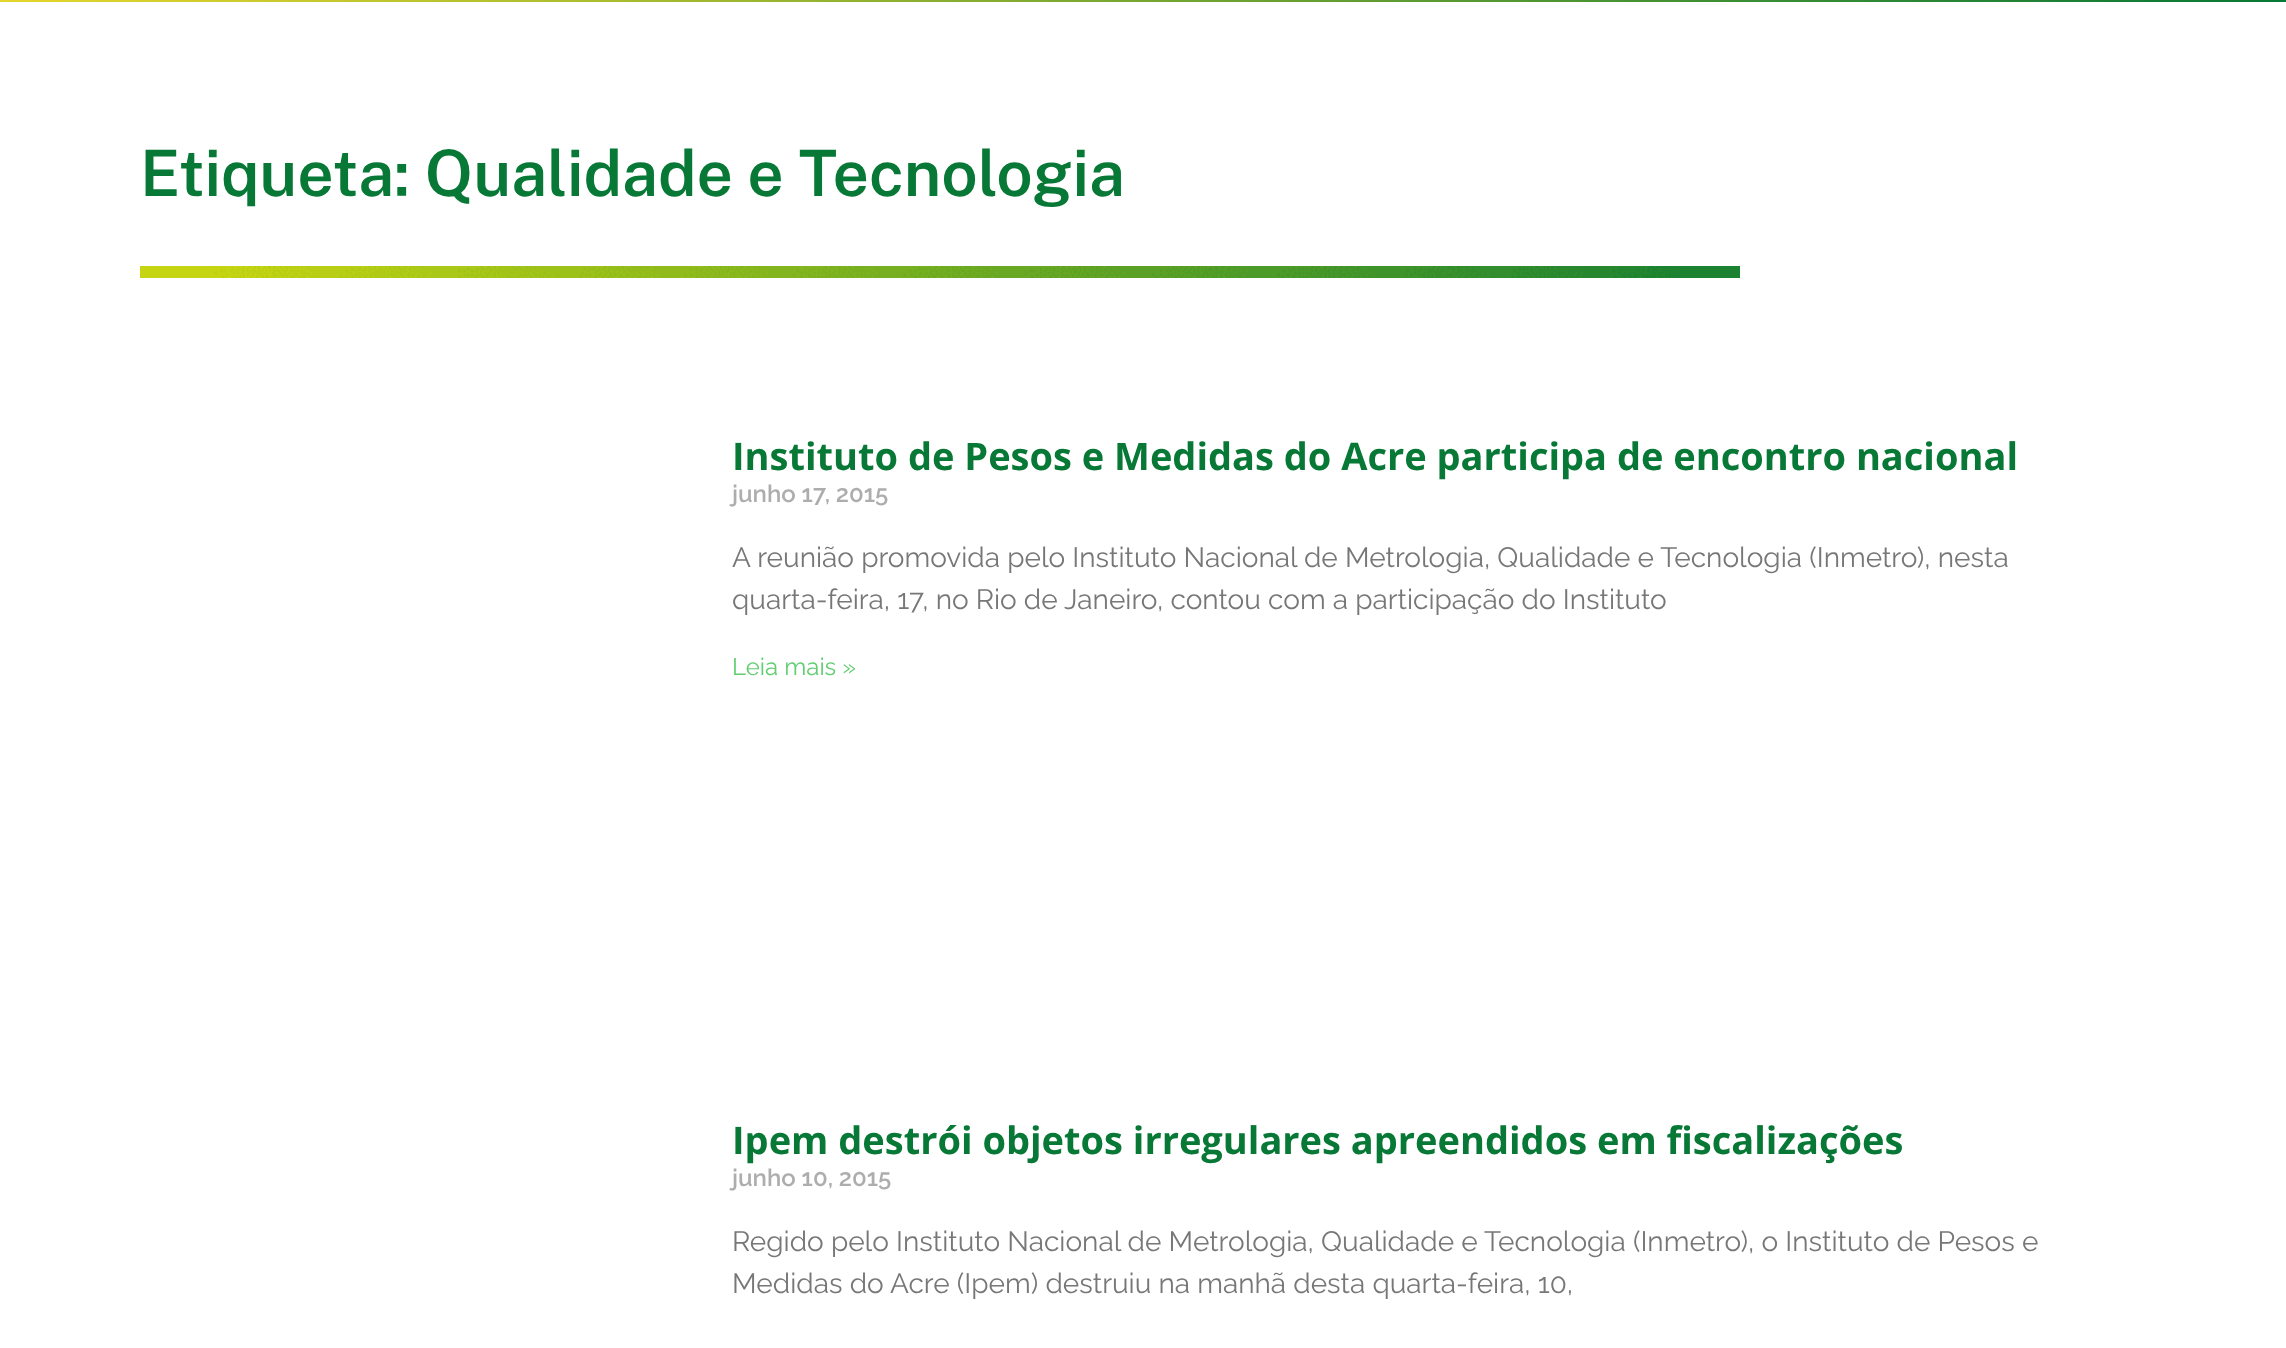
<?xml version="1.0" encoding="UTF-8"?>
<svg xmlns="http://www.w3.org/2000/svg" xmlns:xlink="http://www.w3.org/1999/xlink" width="2286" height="1348">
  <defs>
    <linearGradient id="g1" gradientUnits="userSpaceOnUse" x1="2286" y1="-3" x2="0" y2="-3"><stop offset="0" stop-color="#077835" /><stop offset="1" stop-color="#e5d52c" /></linearGradient>
  </defs>
  <rect width="100%" height="100%" fill="#ffffff" />
  <rect width="2286" height="2" fill="url(#g1)" />
  <image x="140" y="266" width="1600" height="12" xlink:href="image1.png" />
  <text x="140" y="196" style="font-family: Public Sans; font-size: 64px; font-weight: 600; fill: #077835">Etiqueta: Qualidade e Tecnologia</text>
  <text x="732" y="470" style="font-family: Open Sans; font-size: 38px; font-weight: bold; fill: #077835">Instituto de Pesos e Medidas do Acre participa de encontro nacional</text>
  <text x="732" y="502" style="font-family: Raleway; font-size: 24px; font-weight: 600; fill: #adadad">junho 17, 2015</text>
  <text x="732" y="567" style="font-family: Raleway; font-size: 28px; fill: #777777">A reunião promovida pelo Instituto Nacional de Metrologia, Qualidade e Tecnologia (Inmetro), nesta</text>
  <text x="732" y="609" style="font-family: Raleway; font-size: 28px; fill: #777777">quarta-feira, 17, no Rio de Janeiro, contou com a participação do Instituto</text>
  <text x="732" y="675" style="font-family: Raleway; font-size: 24px; fill: #61ce70">Leia mais »</text>
  <text x="732" y="1154" style="font-family: Open Sans; font-size: 38px; font-weight: bold; fill: #077835">Ipem destrói objetos irregulares apreendidos em fiscalizações</text>
  <text x="732" y="1186" style="font-family: Raleway; font-size: 24px; font-weight: 600; fill: #adadad">junho 10, 2015</text>
  <text x="732" y="1251" style="font-family: Raleway; font-size: 28px; fill: #777777">Regido pelo Instituto Nacional de Metrologia, Qualidade e Tecnologia (Inmetro), o Instituto de Pesos e</text>
  <text x="732" y="1293" style="font-family: Raleway; font-size: 28px; fill: #777777">Medidas do Acre (Ipem) destruiu na manhã desta quarta-feira, 10,</text>
</svg>
